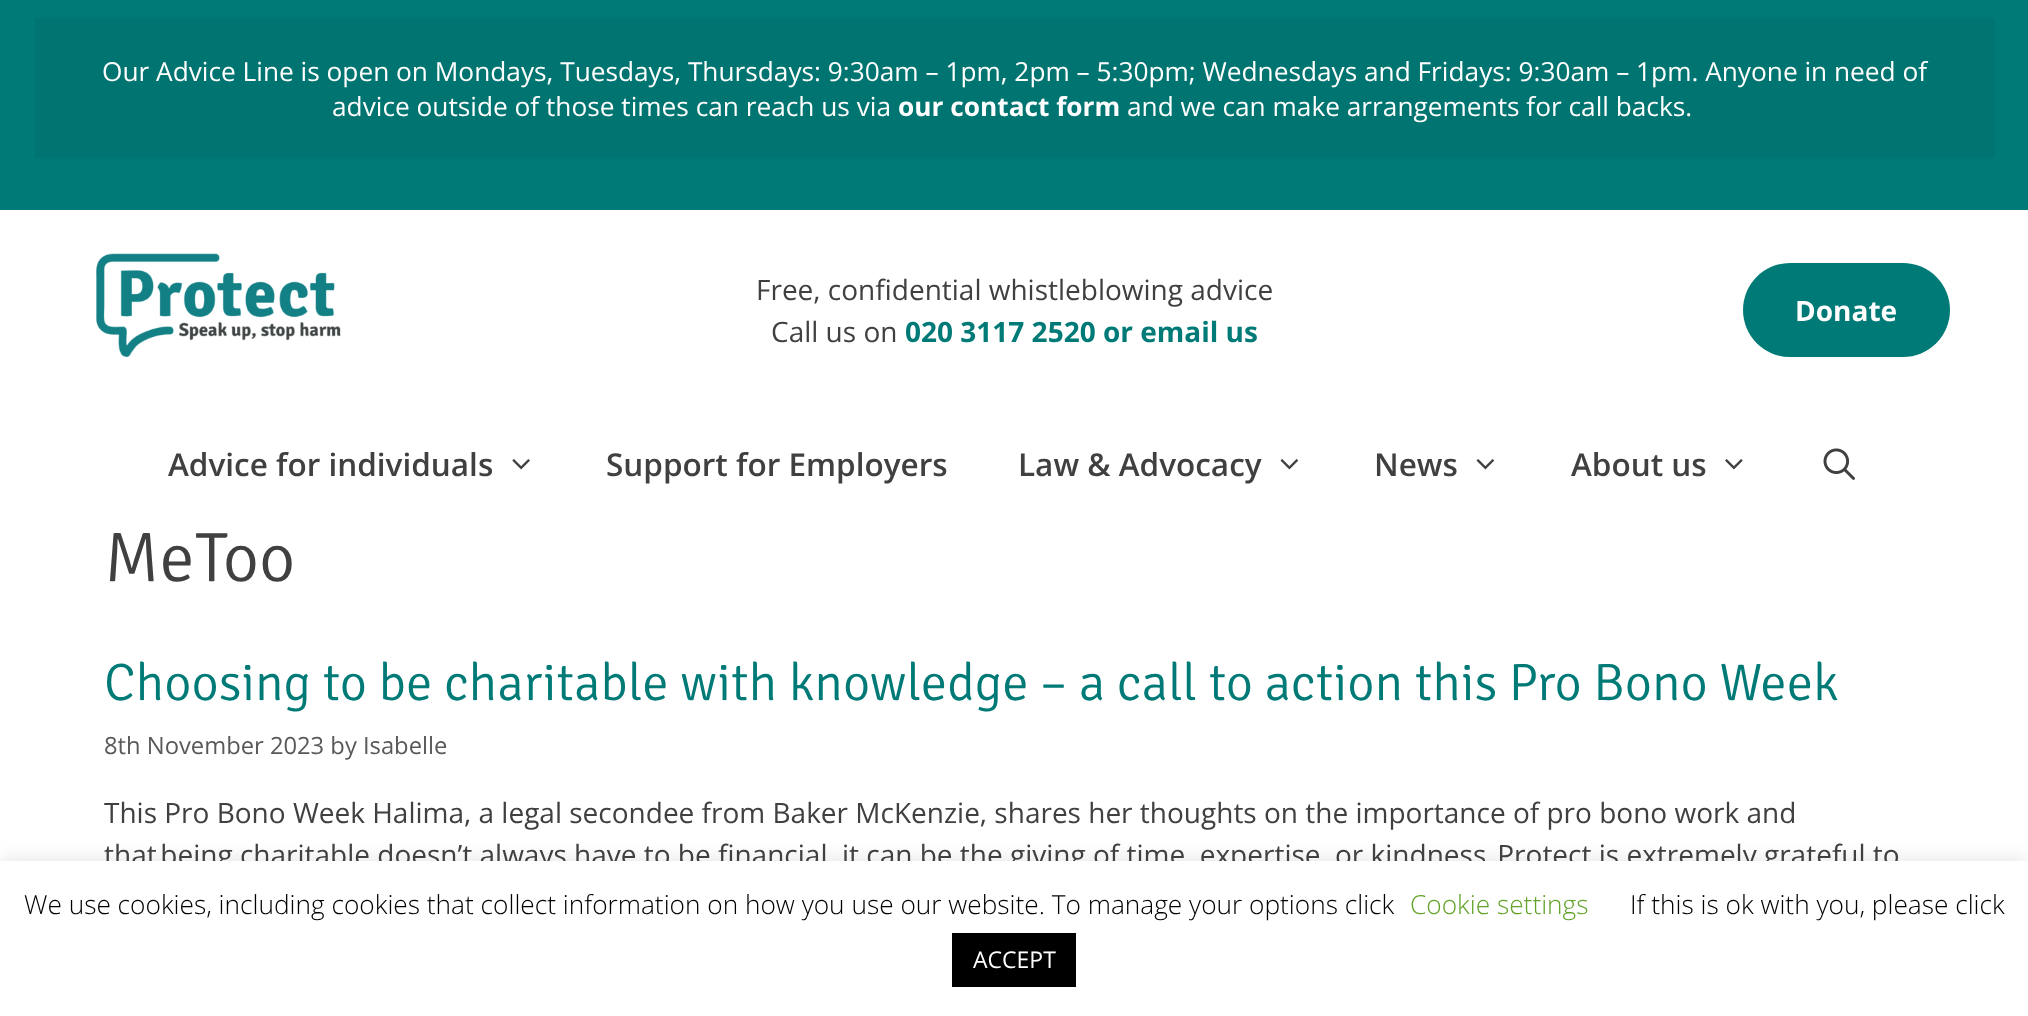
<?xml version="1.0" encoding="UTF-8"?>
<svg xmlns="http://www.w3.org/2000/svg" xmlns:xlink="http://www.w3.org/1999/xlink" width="2028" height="1016">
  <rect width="100%" height="100%" fill="#ffffff" />
  <rect width="2028" height="210" fill="#007a76" />
  <rect x="35" y="18" width="1960" height="140" fill="#007470" />
  <image x="96" y="253" width="245" height="104" xlink:href="image1.png" />
  <rect x="1743" y="263" width="207" height="94" rx="47" fill="#007a76" />
  <image x="512" y="459" width="18" height="11" xlink:href="image2.png" />
  <image x="1280" y="459" width="19" height="11" xlink:href="image3.png" />
  <image x="1476" y="459" width="19" height="11" xlink:href="image3.png" />
  <image x="1725" y="459" width="18" height="11" xlink:href="image4.png" />
  <image x="1823" y="448" width="32" height="32" xlink:href="image5.png" />
  <rect y="859" width="2028" height="156" fill="#acabab" fill-opacity="0.3" filter="blur(9px)" />
  <text x="102" y="81" style="font-family: Open Sans; font-size: 26.25px; fill: #ffffff">Our Advice Line is open on Mondays, Tuesdays, Thursdays: 9:30am – 1pm, 2pm – 5:30pm; Wednesdays and Fridays: 9:30am – 1pm. Anyone in need of</text>
  <text x="332" y="116" style="font-family: Open Sans; font-size: 26.25px; fill: #ffffff">advice outside of those times can reach us via</text>
  <text x="898" y="116" style="font-family: Open Sans; font-size: 26.25px; font-weight: bold; fill: #ffffff">our contact form</text>
  <text x="1127" y="116" style="font-family: Open Sans; font-size: 26.25px; fill: #ffffff">and we can make arrangements for call backs.</text>
  <text x="756" y="300" style="font-family: Open Sans; font-size: 28px; fill: #404040">Free, confidential whistleblowing advice</text>
  <text x="771" y="342" style="font-family: Open Sans; font-size: 28px; fill: #404040">Call us on</text>
  <text x="905" y="342" style="font-family: Open Sans; font-size: 28px; font-weight: bold; fill: #007a76">020 3117 2520 or email us</text>
  <text x="1795" y="321" style="font-family: Open Sans; font-size: 28px; font-weight: bold; fill: #ffffff">Donate</text>
  <text x="168" y="476" style="font-family: Open Sans; font-size: 31.5px; font-weight: 600; fill: #404040">Advice for individuals</text>
  <text x="606" y="476" style="font-family: Open Sans; font-size: 31.5px; font-weight: 600; fill: #404040">Support for Employers</text>
  <text x="1018" y="476" style="font-family: Open Sans; font-size: 31.5px; font-weight: 600; fill: #404040">Law &amp; Advocacy</text>
  <text x="1374" y="476" style="font-family: Open Sans; font-size: 31.5px; font-weight: 600; fill: #404040">News</text>
  <text x="1571" y="476" style="font-family: Open Sans; font-size: 31.5px; font-weight: 600; fill: #404040">About us</text>
  <text x="104" y="581" style="font-family: Signika; font-size: 70px; font-weight: 300; fill: #404040">MeToo</text>
  <text x="104" y="700" style="font-family: Signika; font-size: 52.5px; font-weight: 300; fill: #007a76">Choosing to be charitable with knowledge – a call to action this Pro Bono Week</text>
  <text x="104" y="754" style="font-family: Open Sans; font-size: 23.75px; fill: #595959">8th November 2023 by Isabelle</text>
  <text x="104" y="823" style="font-family: Open Sans; font-size: 28px; fill: #404040">This Pro Bono Week Halima, a legal secondee from Baker McKenzie, shares her thoughts on the importance of pro bono work and</text>
  <text x="104" y="865" style="font-family: Open Sans; font-size: 28px; fill: #404040">that being charitable doesn’t always have to be financial, it can be the giving of time, expertise, or kindness. Protect is extremely grateful to</text>
  <rect y="861" width="2028" height="155" fill="#ffffff" />
  <text x="24" y="914" style="font-family: Open Sans; font-size: 26.25px; font-weight: 300; fill: #000000">We use cookies, including cookies that collect information on how you use our website. To manage your options click</text>
  <text x="1410" y="914" style="font-family: Open Sans; font-size: 26.25px; font-weight: 300; fill: #62a329">Cookie settings</text>
  <text x="1630" y="914" style="font-family: Open Sans; font-size: 26.25px; font-weight: 300; fill: #000000">If this is ok with you, please click</text>
  <rect x="952" y="933" width="124" height="54" fill="#000000" />
  <text x="973" y="968" style="font-family: Open Sans; font-size: 23px; fill: #ffffff">ACCEPT</text>
</svg>
